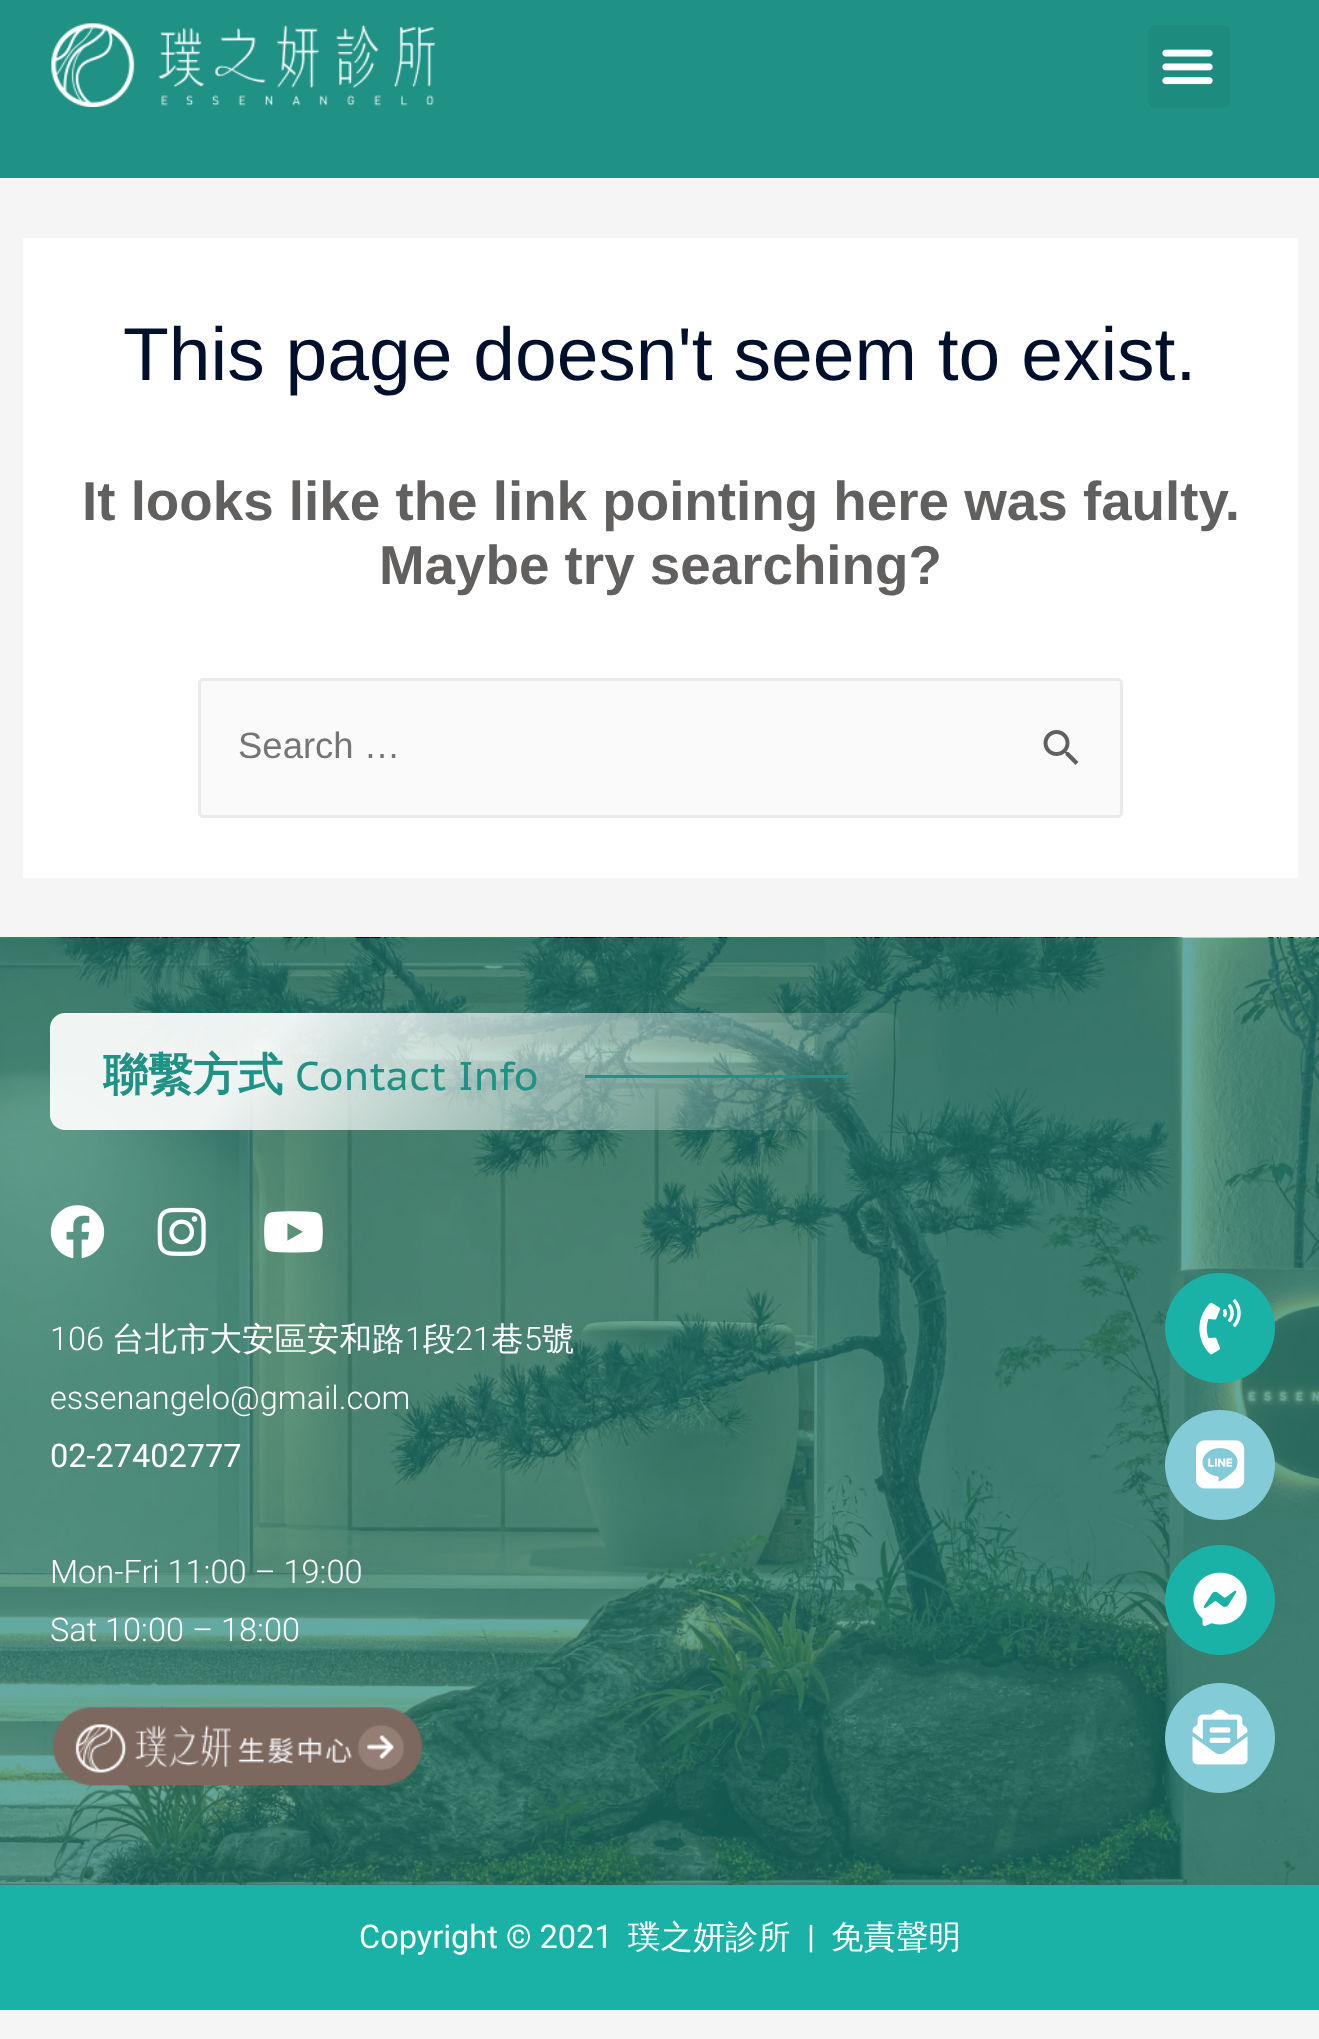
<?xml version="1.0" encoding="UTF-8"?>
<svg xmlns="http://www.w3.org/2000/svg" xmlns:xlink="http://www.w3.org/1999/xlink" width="1319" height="2039">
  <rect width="100%" height="100%" fill="#f5f5f5" />
  <rect width="1319" height="178" fill="#1f9285" />
  <image x="51" y="23" width="385" height="84" xlink:href="image1.png" />
  <rect x="1148" y="25" width="82" height="83" rx="8" fill="#1d8b7e" />
  <image x="1162" y="49" width="51" height="36" xlink:href="image2.png" />
  <rect x="23" y="238" width="1275" height="640" fill="#ffffff" />
  <rect x="199.5" y="679.5" width="922" height="137" rx="3.5" fill="#fafafa" stroke="#eaeaea" stroke-width="3" />
  <image x="1043" y="730" width="36" height="35" xlink:href="image3.png" />
  <image x="0" y="937" width="1319" height="948" xlink:href="image4.png" />
  <rect x="585" y="1075" width="265" height="3" fill="#1f9285" />
  <image x="50" y="1205" width="55" height="54" xlink:href="image5.png" />
  <image x="157" y="1207" width="49" height="49" xlink:href="image6.png" />
  <image x="264" y="1211" width="59" height="42" xlink:href="image7.png" />
  <image x="52" y="1707" width="371" height="79" xlink:href="image8.png" />
  <circle cx="1220" cy="1328" r="55" fill="#1ab2a7" />
  <image x="1199" y="1299" width="42" height="56" xlink:href="image9.png" />
  <circle cx="1220" cy="1465" r="55" fill="#84cbd8" />
  <image x="1196" y="1440" width="49" height="49" xlink:href="image10.png" />
  <circle cx="1220" cy="1600" r="55" fill="#1ab2a7" />
  <image x="1193" y="1572" width="54" height="54" xlink:href="image11.png" />
  <circle cx="1220" cy="1738" r="55" fill="#84cbd8" />
  <image x="1192" y="1709" width="56" height="56" xlink:href="image12.png" />
  <rect y="1885" width="1319" height="125" fill="#1ab2a7" />
  <text x="123" y="380" style="font-family: Liberation Sans; font-size: 75px; fill: #000f2b">This page doesn't seem to exist.</text>
  <text x="82" y="520" style="font-family: Liberation Sans; font-size: 54.75px; font-weight: bold; fill: #625f5f">It looks like the link pointing here was faulty.</text>
  <text x="379" y="584" style="font-family: Liberation Sans; font-size: 54.75px; font-weight: bold; fill: #625f5f">Maybe try searching?</text>
  <text x="238" y="758" style="font-family: Liberation Sans; font-size: 36.5px; fill: #757575">Search …</text>
  <text x="103" y="1090" style="font-family: WenQuanYi Zen Hei; font-size: 45px; font-weight: bold; fill: #1f9285">聯繫方式</text>
  <text x="295" y="1090" style="font-family: PT Sans Caption; font-size: 40px; fill: #1f9285">Contact Info</text>
  <text x="50" y="1350" style="font-family: Roboto; font-size: 32.5px; font-weight: 300; fill: #ffffff">106</text>
  <text x="112" y="1350" style="font-family: WenQuanYi Zen Hei; font-size: 32.5px; font-weight: 500; fill: #ffffff">台北市大安區安和路</text>
  <text x="405" y="1350" style="font-family: Roboto; font-size: 32.5px; font-weight: 300; fill: #ffffff">1</text>
  <text x="423" y="1350" style="font-family: WenQuanYi Zen Hei; font-size: 32.5px; font-weight: 500; fill: #ffffff">段</text>
  <text x="455" y="1350" style="font-family: Roboto; font-size: 32.5px; font-weight: 300; fill: #ffffff">21</text>
  <text x="491" y="1350" style="font-family: WenQuanYi Zen Hei; font-size: 32.5px; font-weight: 500; fill: #ffffff">巷</text>
  <text x="524" y="1350" style="font-family: Roboto; font-size: 32.5px; font-weight: 300; fill: #ffffff">5</text>
  <text x="542" y="1350" style="font-family: WenQuanYi Zen Hei; font-size: 32.5px; font-weight: 500; fill: #ffffff">號</text>
  <text x="50" y="1409" style="font-family: Roboto; font-size: 32.5px; font-weight: 300; fill: #ffffff">essenangelo@gmail.com</text>
  <text x="50" y="1467" style="font-family: Roboto; font-size: 32.5px; fill: #ffffff">02-27402777</text>
  <text x="50" y="1583" style="font-family: Roboto; font-size: 32.5px; font-weight: 300; fill: #ffffff">Mon-Fri 11:00 – 19:00</text>
  <text x="50" y="1641" style="font-family: Roboto; font-size: 32.5px; font-weight: 300; fill: #ffffff">Sat 10:00 – 18:00</text>
  <text x="359" y="1948" style="font-family: Roboto; font-size: 32.5px; fill: #ffffff">Copyright © 2021</text>
  <text x="628" y="1948" style="font-family: WenQuanYi Zen Hei; font-size: 32.5px; font-weight: 500; fill: #ffffff">璞之妍診所</text>
  <text x="807" y="1948" style="font-family: Roboto; font-size: 32.5px; fill: #ffffff">|</text>
  <text x="831" y="1948" style="font-family: WenQuanYi Zen Hei; font-size: 32.5px; font-weight: 500; fill: #ffffff">免責聲明</text>
</svg>
